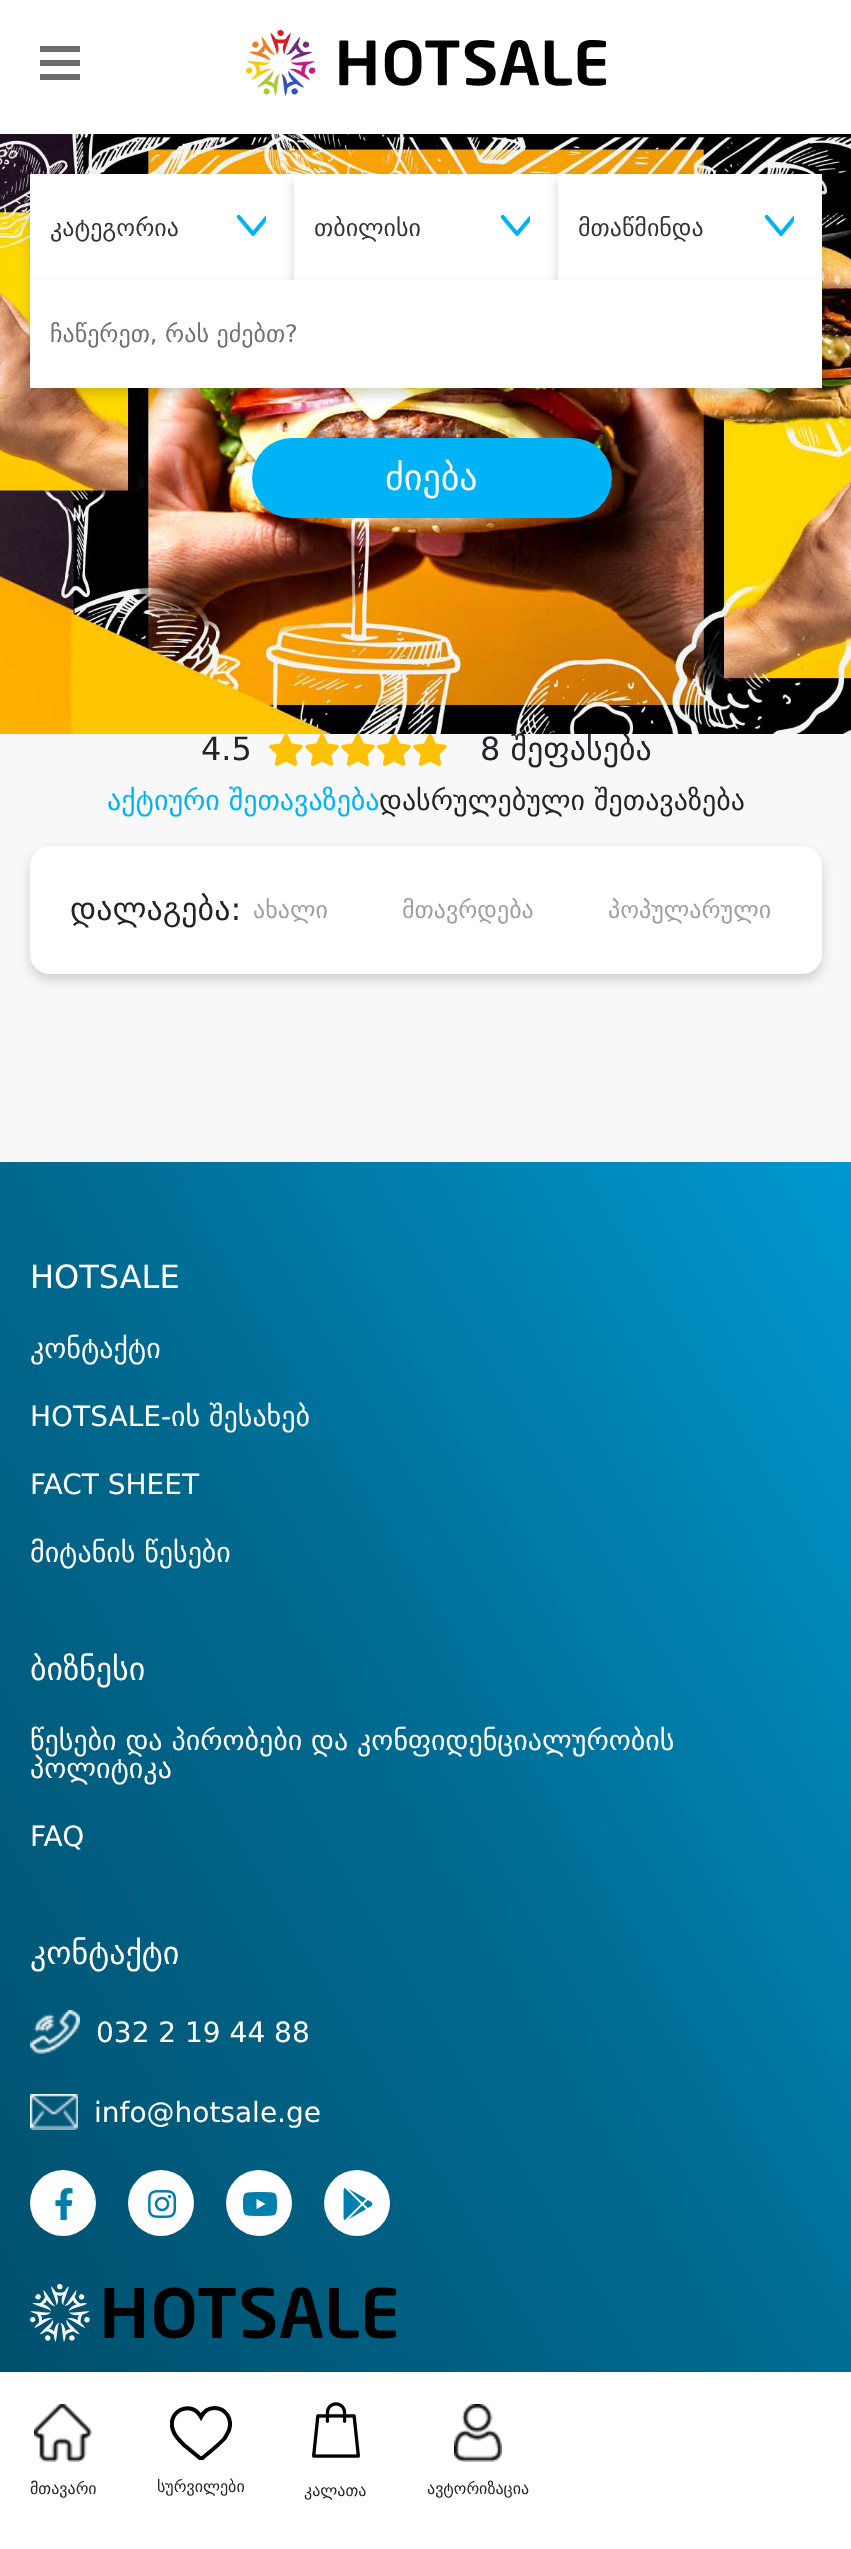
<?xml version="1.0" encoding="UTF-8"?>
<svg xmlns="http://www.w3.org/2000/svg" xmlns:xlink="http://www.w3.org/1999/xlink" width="851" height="2549">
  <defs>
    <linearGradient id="g1" gradientUnits="userSpaceOnUse" x1="-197" y1="2243" x2="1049" y2="1487"><stop offset="0" stop-color="#004c68" /><stop offset="0.5" stop-color="#00688e" /><stop offset="1" stop-color="#0098d0" /></linearGradient>
    <clipPath id="clip1"><rect x="170" y="2406" width="62" height="54" /></clipPath>
  </defs>
  <rect width="100%" height="100%" fill="#ffffff" />
  <rect x="40" y="60" width="40" height="6" fill="#6c6d6e" />
  <rect x="40" y="46" width="40" height="6" fill="#6c6d6e" />
  <rect x="40" y="74" width="40" height="6" fill="#6c6d6e" />
  <image x="246" y="30" width="360" height="66" xlink:href="image1.png" />
  <image x="0" y="134" width="851" height="600" xlink:href="image2.png" />
  <rect x="30" y="180" width="264" height="106" fill="#000000" fill-opacity="0.16" filter="blur(6px)" />
  <rect x="30" y="174" width="264" height="106" fill="#ffffff" />
  <image x="236" y="214" width="30" height="22" xlink:href="image3.png" />
  <rect x="294" y="180" width="264" height="106" fill="#000000" fill-opacity="0.16" filter="blur(6px)" />
  <rect x="294" y="174" width="264" height="106" fill="#ffffff" />
  <image x="500" y="214" width="30" height="22" xlink:href="image4.png" />
  <rect x="558" y="180" width="264" height="106" fill="#000000" fill-opacity="0.16" filter="blur(6px)" />
  <rect x="558" y="174" width="264" height="106" fill="#ffffff" />
  <image x="764" y="214" width="30" height="22" xlink:href="image5.png" />
  <rect x="30" y="286" width="792" height="108" fill="#000000" fill-opacity="0.16" filter="blur(6px)" />
  <rect x="30" y="280" width="792" height="108" fill="#ffffff" />
  <rect x="252" y="438" width="360" height="80" rx="40" fill="#00b3f6" />
  <rect y="734" width="851" height="428" fill="#f8f8f8" />
  <image x="269" y="734" width="34" height="32" xlink:href="image6.png" />
  <image x="305" y="734" width="34" height="32" xlink:href="image6.png" />
  <image x="341" y="734" width="34" height="32" xlink:href="image6.png" />
  <image x="377" y="734" width="34" height="32" xlink:href="image6.png" />
  <image x="413" y="734" width="34" height="32" xlink:href="image6.png" />
  <rect x="30" y="852" width="792" height="128" rx="20" fill="#000000" fill-opacity="0.16" filter="blur(6px)" />
  <rect x="30" y="846" width="792" height="128" rx="20" fill="#ffffff" />
  <rect y="1162" width="851" height="1210" fill="url(#g1)" />
  <image x="30" y="2010" width="50" height="44" xlink:href="image7.png" />
  <image x="30" y="2094" width="48" height="36" xlink:href="image8.png" />
  <circle cx="63" cy="2203" r="33" fill="#ffffff" />
  <image x="55" y="2188" width="18" height="32" xlink:href="image9.png" />
  <circle cx="161" cy="2203" r="33" fill="#ffffff" />
  <image x="148" y="2190" width="29" height="28" xlink:href="image10.png" />
  <circle cx="259" cy="2203" r="33" fill="#ffffff" />
  <image x="242" y="2192" width="36" height="24" xlink:href="image11.png" />
  <circle cx="357" cy="2203" r="33" fill="#ffffff" />
  <image x="343" y="2188" width="30" height="32" xlink:href="image12.png" />
  <image x="30" y="2284" width="366" height="58" xlink:href="image13.png" />
  <rect y="2378" width="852" height="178" fill="#000000" fill-opacity="0.16" filter="blur(6px)" />
  <rect y="2372" width="851" height="177" fill="#ffffff" />
  <image x="34" y="2404" width="58" height="58" xlink:href="image14.png" />
  <g clip-path="url(#clip1)">
    <path d="M 214.5 2408 c -6 0 -11 4 -13.5 9 c -10 -18.5 -36 -5 -27.5 14.5 c 2 5.5 6.5 9.5 10.5 13.5 l 16.5 13.5 c 1 0.5 2 -0.5 2.5 -1 c 7.5 -6 15 -12 21.5 -19 l 4 -7 c 2 -5 2 -11.5 -1 -16.5 c -3 -4.5 -7.5 -7 -13 -7 z" fill="none" stroke="#000000" stroke-width="4" />
  </g>
  <image x="312" y="2402" width="48" height="56" xlink:href="image15.png" />
  <image x="454" y="2404" width="48" height="58" xlink:href="image16.png" />
  <text x="50" y="236" style="font-family: DejaVu Sans; font-size: 24px; fill: #343434">კატეგორია</text>
  <text x="314" y="236" style="font-family: DejaVu Sans; font-size: 24px; fill: #343434">თბილისი</text>
  <text x="578" y="236" style="font-family: DejaVu Sans; font-size: 24px; fill: #343434">მთაწმინდა</text>
  <text x="50" y="342" style="font-family: DejaVu Sans; font-size: 24px; fill: #707070">ჩაწერეთ, რას ეძებთ?</text>
  <text x="385" y="490" style="font-family: DejaVu Sans; font-size: 36px; fill: #ffffff">ძიება</text>
  <text x="201" y="760" style="font-family: DejaVu Sans; font-size: 32px; fill: #212529">4.5</text>
  <text x="480" y="760" style="font-family: DejaVu Sans; font-size: 32px; fill: #212529">8 შეფასება</text>
  <text x="107" y="810" style="font-family: DejaVu Sans; font-size: 28px; fill: #00b3f6">აქტიური შეთავაზება</text>
  <text x="379" y="810" style="font-family: DejaVu Sans; font-size: 28px; fill: #212529">დასრულებული შეთავაზება</text>
  <text x="70" y="920" style="font-family: DejaVu Sans; font-size: 32px; fill: #212529">დალაგება:</text>
  <text x="253" y="918" style="font-family: DejaVu Sans; font-size: 24px; fill: #9f9f9f">ახალი</text>
  <text x="402" y="918" style="font-family: DejaVu Sans; font-size: 24px; fill: #9f9f9f">მთავრდება</text>
  <text x="608" y="918" style="font-family: DejaVu Sans; font-size: 24px; fill: #9f9f9f">პოპულარული</text>
  <text x="30" y="1288" style="font-family: DejaVu Sans; font-size: 32px; fill: #ffffff">HOTSALE</text>
  <text x="30" y="1358" style="font-family: DejaVu Sans; font-size: 28px; fill: #ffffff">კონტაქტი</text>
  <text x="30" y="1426" style="font-family: DejaVu Sans; font-size: 28px; fill: #ffffff">HOTSALE-ის შესახებ</text>
  <text x="30" y="1494" style="font-family: DejaVu Sans; font-size: 28px; fill: #ffffff">FACT SHEET</text>
  <text x="30" y="1562" style="font-family: DejaVu Sans; font-size: 28px; fill: #ffffff">მიტანის წესები</text>
  <text x="30" y="1680" style="font-family: DejaVu Sans; font-size: 32px; fill: #ffffff">ბიზნესი</text>
  <text x="30" y="1750" style="font-family: DejaVu Sans; font-size: 28px; fill: #ffffff">წესები და პირობები და კონფიდენციალურობის</text>
  <text x="30" y="1778" style="font-family: DejaVu Sans; font-size: 28px; fill: #ffffff">პოლიტიკა</text>
  <text x="30" y="1846" style="font-family: DejaVu Sans; font-size: 28px; fill: #ffffff">FAQ</text>
  <text x="30" y="1964" style="font-family: DejaVu Sans; font-size: 32px; fill: #ffffff">კონტაქტი</text>
  <text x="96" y="2042" style="font-family: DejaVu Sans; font-size: 28px; fill: #ffffff">032 2 19 44 88</text>
  <text x="94" y="2122" style="font-family: DejaVu Sans; font-size: 28px; fill: #ffffff">info@hotsale.ge</text>
  <text x="30" y="2494" style="font-family: DejaVu Sans; font-size: 16px; fill: #212529">მთავარი</text>
  <text x="157" y="2492" style="font-family: DejaVu Sans; font-size: 16px; fill: #212529">სურვილები</text>
  <text x="304" y="2496" style="font-family: DejaVu Sans; font-size: 16px; fill: #212529">კალათა</text>
  <text x="427" y="2494" style="font-family: DejaVu Sans; font-size: 16px; fill: #212529">ავტორიზაცია</text>
</svg>
